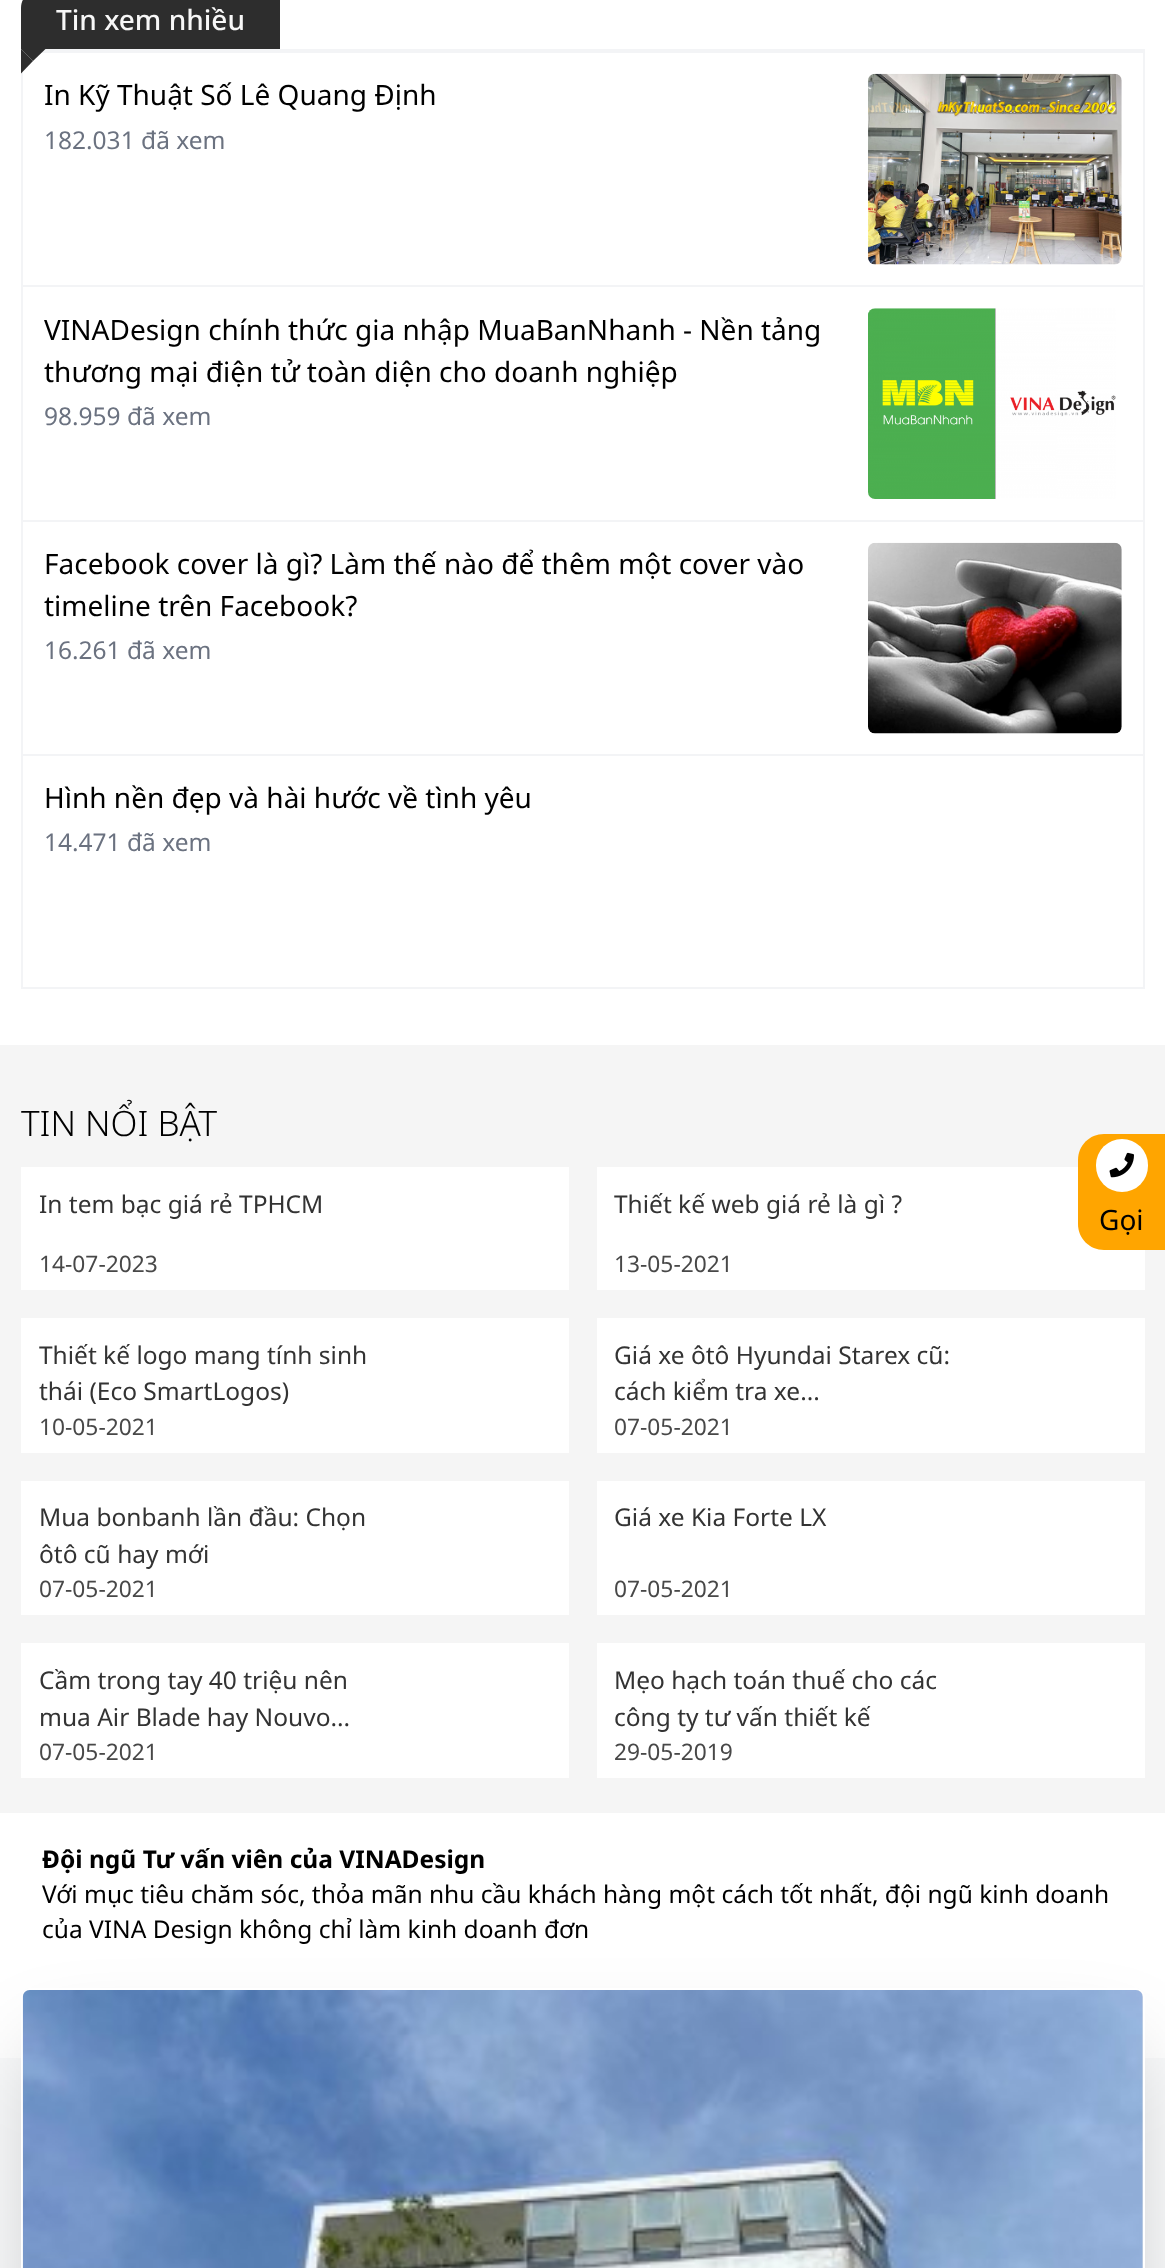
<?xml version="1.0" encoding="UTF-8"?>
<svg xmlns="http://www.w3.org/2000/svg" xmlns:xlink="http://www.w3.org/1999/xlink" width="1165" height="2268">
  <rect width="100%" height="100%" fill="#ffffff" />
  <path d="M 39 -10 h 241 v 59 h -259 v -41 c 0 -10 8 -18 18 -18 z" fill="#2d2d2d" />
  <rect x="22" y="50" width="1122" height="938" fill="none" stroke="#f3f4f6" stroke-width="2" />
  <rect x="23" y="51" width="1120" height="2" fill="#f3f4f6" />
  <path d="M 21 49 h 24.5 l -12.5 12 z" fill="#2d2d2d" />
  <path d="M 21 73.5 v -24.5 l 12 12 z" fill="#2d2d2d" />
  <image x="868" y="73" width="254" height="192" xlink:href="image1.png" />
  <rect x="23" y="285" width="1120" height="2" fill="#f3f4f6" />
  <image x="868" y="308" width="248" height="191" xlink:href="image2.png" />
  <rect x="23" y="520" width="1120" height="2" fill="#f3f4f6" />
  <image x="868" y="542" width="254" height="192" xlink:href="image3.png" />
  <rect x="23" y="754" width="1120" height="2" fill="#f3f4f6" />
  <rect y="1045" width="1165" height="768" fill="#f5f5f5" />
  <rect x="21" y="1167" width="548" height="123" fill="#ffffff" />
  <rect x="597" y="1167" width="548" height="123" fill="#ffffff" />
  <rect x="21" y="1318" width="548" height="135" fill="#ffffff" />
  <rect x="597" y="1318" width="548" height="135" fill="#ffffff" />
  <rect x="21" y="1481" width="548" height="134" fill="#ffffff" />
  <rect x="597" y="1481" width="548" height="134" fill="#ffffff" />
  <rect x="21" y="1643" width="548" height="135" fill="#ffffff" />
  <rect x="597" y="1643" width="548" height="135" fill="#ffffff" />
  <path d="M 1104 1134 h 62 v 116 h -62 c -14.5 0 -26 -11.5 -26 -26 v -64 c 0 -14.5 11.5 -26 26 -26 z" fill="#ffa500" />
  <rect x="1096" y="1139" width="52" height="53" rx="26" fill="#ffffff" />
  <image x="1109" y="1152" width="25" height="26" xlink:href="image4.png" />
  <rect y="2058" width="1165" height="210" fill="#f9fafb" />
  <rect x="42" y="2053" width="1082" height="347" fill="#000000" fill-opacity="0.25" filter="blur(44px)" />
  <rect x="22" y="1989" width="1122" height="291" rx="10" fill="none" stroke="#ffffff" stroke-width="2" />
  <rect x="23" y="1990" width="1120" height="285" rx="7" fill="#e5e7eb" />
  <image x="22" y="1990" width="1121" height="278" xlink:href="image5.png" />
  <text x="56" y="30" style="font-family: Noto Sans; font-size: 28px; font-weight: 500; fill: #f7f7f7">Tin xem nhiều</text>
  <text x="44" y="105" style="font-family: Noto Sans; font-size: 28px; fill: #000000">In Kỹ Thuật Số Lê Quang Định</text>
  <text x="44" y="149" style="font-family: Noto Sans; font-size: 24.5px; fill: #6b7280">182.031 đã xem</text>
  <text x="44" y="340" style="font-family: Noto Sans; font-size: 28px; fill: #000000">VINADesign chính thức gia nhập MuaBanNhanh - Nền tảng</text>
  <text x="44" y="382" style="font-family: Noto Sans; font-size: 28px; fill: #000000">thương mại điện tử toàn diện cho doanh nghiệp</text>
  <text x="44" y="425" style="font-family: Noto Sans; font-size: 24.5px; fill: #6b7280">98.959 đã xem</text>
  <text x="44" y="574" style="font-family: Noto Sans; font-size: 28px; fill: #000000">Facebook cover là gì? Làm thế nào để thêm một cover vào</text>
  <text x="44" y="616" style="font-family: Noto Sans; font-size: 28px; fill: #000000">timeline trên Facebook?</text>
  <text x="44" y="659" style="font-family: Noto Sans; font-size: 24.5px; fill: #6b7280">16.261 đã xem</text>
  <text x="44" y="808" style="font-family: Noto Sans; font-size: 28px; fill: #000000">Hình nền đẹp và hài hước về tình yêu</text>
  <text x="44" y="851" style="font-family: Noto Sans; font-size: 24.5px; fill: #6b7280">14.471 đã xem</text>
  <text x="21" y="1136" style="font-family: Noto Sans; font-size: 35px; font-weight: 300; fill: #000000">TIN NỔI BẬT</text>
  <text x="39" y="1213" style="font-family: Noto Sans; font-size: 24.5px; fill: #333333">In tem bạc giá rẻ TPHCM</text>
  <text x="39" y="1272" style="font-family: Noto Sans; font-size: 22.75px; fill: #484848">14-07-2023</text>
  <text x="614" y="1213" style="font-family: Noto Sans; font-size: 24.5px; fill: #333333">Thiết kế web giá rẻ là gì ?</text>
  <text x="614" y="1272" style="font-family: Noto Sans; font-size: 22.75px; fill: #484848">13-05-2021</text>
  <text x="39" y="1364" style="font-family: Noto Sans; font-size: 24.5px; fill: #333333">Thiết kế logo mang tính sinh</text>
  <text x="39" y="1400" style="font-family: Noto Sans; font-size: 24.5px; fill: #333333">thái (Eco SmartLogos)</text>
  <text x="39" y="1435" style="font-family: Noto Sans; font-size: 22.75px; fill: #484848">10-05-2021</text>
  <text x="614" y="1364" style="font-family: Noto Sans; font-size: 24.5px; fill: #333333">Giá xe ôtô Hyundai Starex cũ:</text>
  <text x="614" y="1400" style="font-family: Noto Sans; font-size: 24.5px; fill: #333333">cách kiểm tra xe...</text>
  <text x="614" y="1435" style="font-family: Noto Sans; font-size: 22.75px; fill: #484848">07-05-2021</text>
  <text x="39" y="1526" style="font-family: Noto Sans; font-size: 24.5px; fill: #333333">Mua bonbanh lần đầu: Chọn</text>
  <text x="39" y="1563" style="font-family: Noto Sans; font-size: 24.5px; fill: #333333">ôtô cũ hay mới</text>
  <text x="39" y="1597" style="font-family: Noto Sans; font-size: 22.75px; fill: #484848">07-05-2021</text>
  <text x="614" y="1526" style="font-family: Noto Sans; font-size: 24.5px; fill: #333333">Giá xe Kia Forte LX</text>
  <text x="614" y="1597" style="font-family: Noto Sans; font-size: 22.75px; fill: #484848">07-05-2021</text>
  <text x="39" y="1689" style="font-family: Noto Sans; font-size: 24.5px; fill: #333333">Cầm trong tay 40 triệu nên</text>
  <text x="39" y="1726" style="font-family: Noto Sans; font-size: 24.5px; fill: #333333">mua Air Blade hay Nouvo...</text>
  <text x="39" y="1760" style="font-family: Noto Sans; font-size: 22.75px; fill: #484848">07-05-2021</text>
  <text x="614" y="1689" style="font-family: Noto Sans; font-size: 24.5px; fill: #333333">Mẹo hạch toán thuế cho các</text>
  <text x="614" y="1726" style="font-family: Noto Sans; font-size: 24.5px; fill: #333333">công ty tư vấn thiết kế</text>
  <text x="614" y="1760" style="font-family: Noto Sans; font-size: 22.75px; fill: #484848">29-05-2019</text>
  <text x="1099" y="1230" style="font-family: Noto Sans; font-size: 28px; fill: #000000">Gọi</text>
  <text x="42" y="1868" style="font-family: Noto Sans; font-size: 24.5px; font-weight: bold; fill: #000000">Đội ngũ Tư vấn viên của VINADesign</text>
  <text x="42" y="1903" style="font-family: Noto Sans; font-size: 24.5px; fill: #000000">Với mục tiêu chăm sóc, thỏa mãn nhu cầu khách hàng một cách tốt nhất, đội ngũ kinh doanh</text>
  <text x="42" y="1938" style="font-family: Noto Sans; font-size: 24.5px; fill: #000000">của VINA Design không chỉ làm kinh doanh đơn</text>
</svg>
